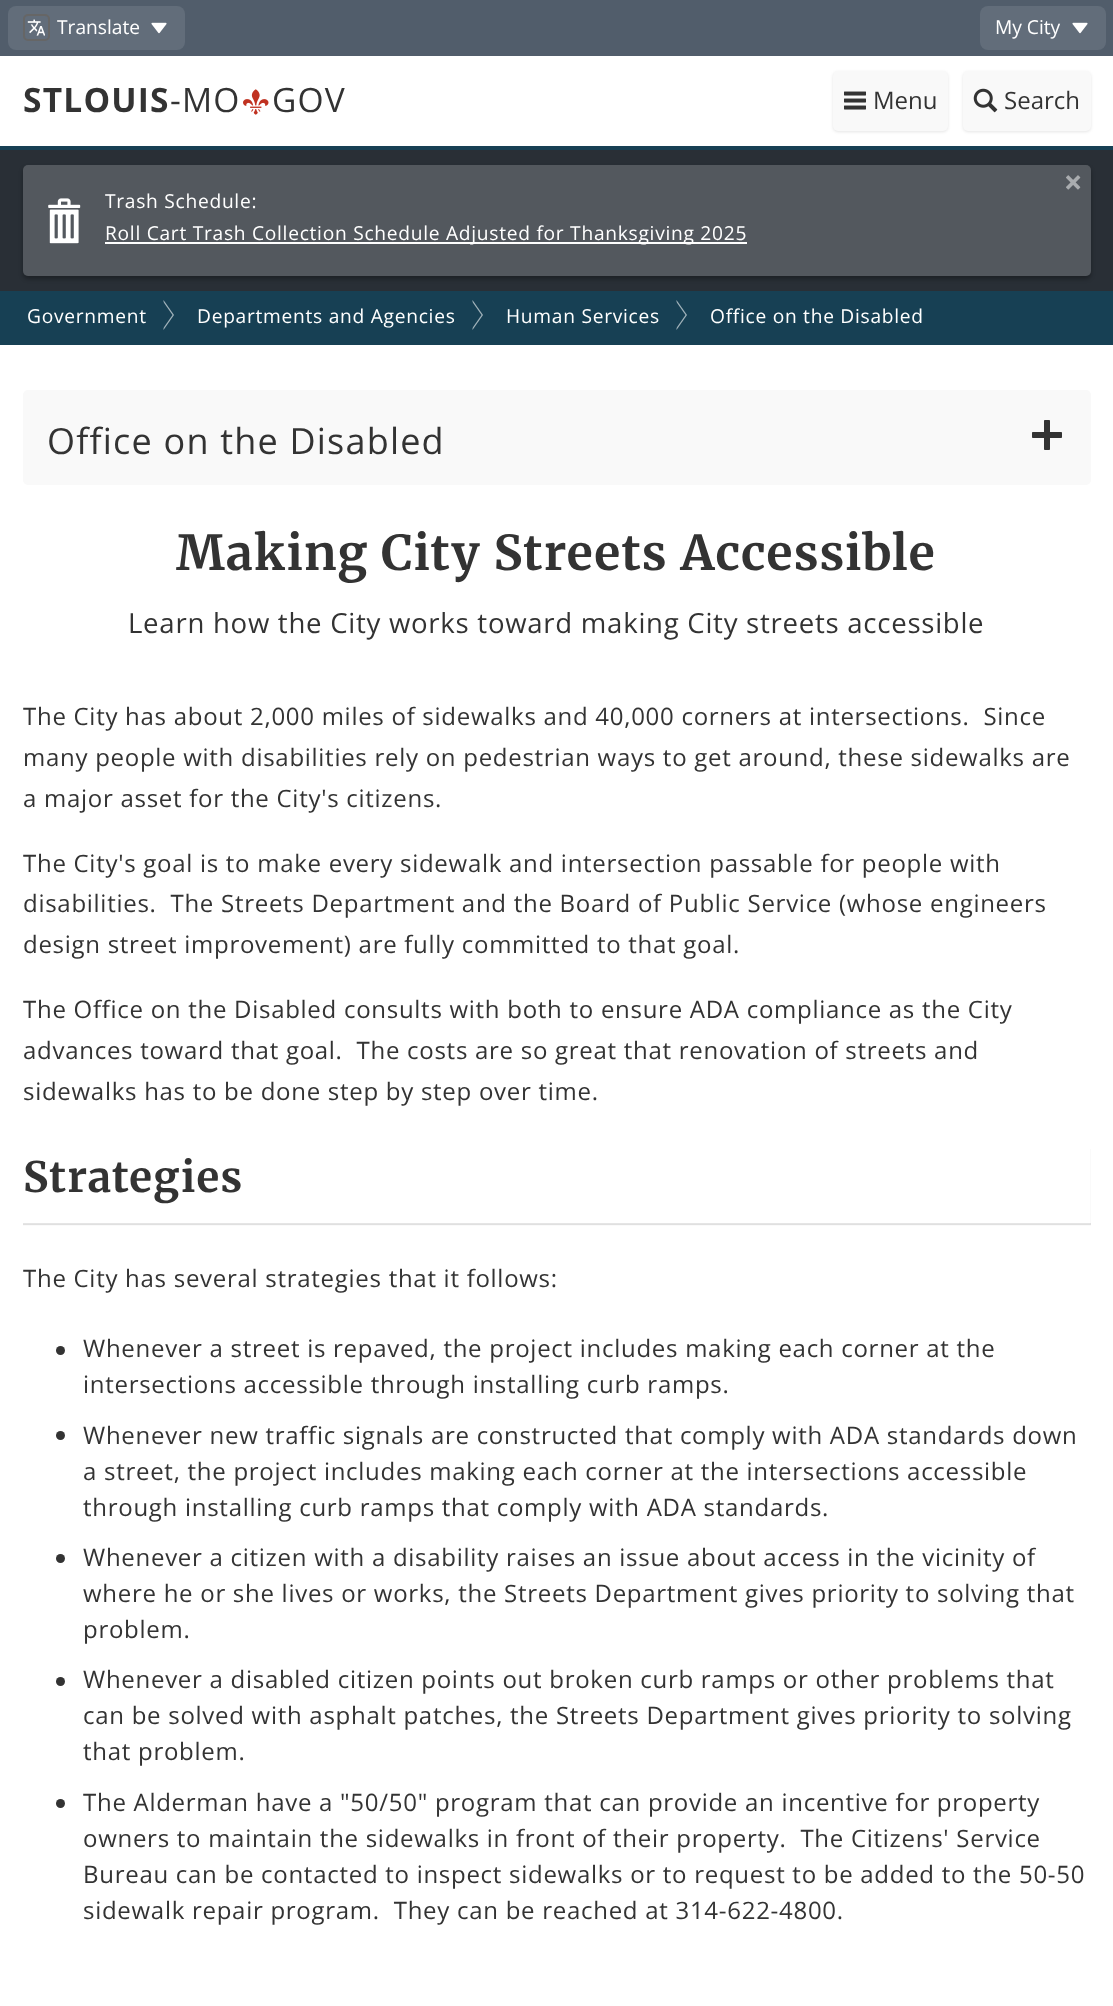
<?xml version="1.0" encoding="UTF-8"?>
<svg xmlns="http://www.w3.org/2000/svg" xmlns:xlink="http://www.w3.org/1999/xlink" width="1113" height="2006">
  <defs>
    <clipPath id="clip1"><path d="M 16 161 h 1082 v 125 h -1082 z m 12 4 h 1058 c 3 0 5 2 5 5 v 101 c 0 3 -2 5 -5 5 h -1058 c -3 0 -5 -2 -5 -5 v -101 c 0 -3 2 -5 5 -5 z" clip-rule="evenodd" /></clipPath>
  </defs>
  <rect width="100%" height="100%" fill="#ffffff" />
  <rect width="1113" height="56" fill="#515d6b" />
  <rect x="8" y="6" width="177" height="44" rx="8" fill="#626d7a" />
  <image x="151" y="22" width="16" height="12" xlink:href="image1.png" />
  <image x="27" y="19" width="18" height="17" xlink:href="image2.png" />
  <rect x="24" y="15" width="25" height="25" rx="4" fill="none" stroke="#666666" stroke-width="2" />
  <rect x="980" y="6" width="126" height="44" rx="8" fill="#626d7a" />
  <image x="1072" y="22" width="16" height="12" xlink:href="image1.png" />
  <rect y="146" width="1113" height="4" fill="#174054" />
  <image x="243" y="89" width="26" height="26" xlink:href="image3.png" />
  <rect x="833" y="72" width="115" height="60" rx="5" fill="#000000" fill-opacity="0.1" filter="blur(1.5px)" />
  <rect x="833" y="71" width="115" height="60" rx="5" fill="#f9f9f9" />
  <image x="844" y="91" width="22" height="19" xlink:href="image4.png" />
  <rect x="963" y="72" width="128" height="60" rx="5" fill="#000000" fill-opacity="0.1" filter="blur(1.5px)" />
  <rect x="963" y="71" width="128" height="60" rx="5" fill="#f9f9f9" />
  <image x="973" y="88" width="25" height="25" xlink:href="image5.png" />
  <rect y="150" width="1113" height="141" fill="#292f36" />
  <g clip-path="url(#clip1)">
    <rect x="23" y="168" width="1068" height="111" rx="5" fill="#000000" fill-opacity="0.3" filter="blur(2px)" />
  </g>
  <rect x="23" y="165" width="1068" height="111" rx="5" fill="#ffffff" fill-opacity="0.2" />
  <image x="1066" y="175" width="15" height="15" xlink:href="image6.png" />
  <image x="48" y="198" width="33" height="46" xlink:href="image7.png" />
  <rect x="105" y="242" width="642" height="2" fill="#ffffff" />
  <rect y="291" width="1113" height="54" fill="#174054" />
  <path d="M 163.5 330 v -30 l 10.5 15 z" fill="#a2b3bb" />
  <path d="M 162 330 v -30 l 10.5 15 z" fill="#174054" />
  <path d="M 472.5 330 v -30 l 10.5 15 z" fill="#a2b3bb" />
  <path d="M 471 330 v -30 l 10.5 15 z" fill="#174054" />
  <path d="M 676.5 330 v -30 l 10.5 15 z" fill="#a2b3bb" />
  <path d="M 675 330 v -30 l 10.5 15 z" fill="#174054" />
  <rect x="23" y="390" width="1068" height="95" rx="5" fill="#f9f9f9" />
  <image x="1032" y="420" width="30" height="30" xlink:href="image8.png" />
  <path d="M 23 1224 v 2 h 1068 v -77 h -1 v 75 z" fill="#fafafa" />
  <rect x="23" y="1223" width="1068" height="2" fill="#000000" fill-opacity="0.1" />
  <circle cx="60.5" cy="1350.5" r="4.5" fill="#333333" />
  <circle cx="60.5" cy="1435.5" r="4.5" fill="#333333" />
  <circle cx="60.5" cy="1558.5" r="4.5" fill="#333333" />
  <circle cx="60.5" cy="1681.5" r="4.5" fill="#333333" />
  <circle cx="60.5" cy="1803.5" r="4.5" fill="#333333" />
  <text x="57" y="34" style="font-family: Open Sans; font-size: 19.2px; fill: #ffffff">Translate</text>
  <text x="995" y="34" style="font-family: Open Sans; font-size: 19.2px; fill: #ffffff">My City</text>
  <text x="23" y="112" style="font-family: Open Sans; font-size: 33.5px; font-weight: bold; letter-spacing: 1.2px; fill: #333333">STLOUIS</text>
  <text x="170" y="112" style="font-family: Open Sans; font-size: 33.5px; letter-spacing: 1.2px; fill: #333333">-MO</text>
  <text x="272" y="112" style="font-family: Open Sans; font-size: 33.5px; letter-spacing: 1.2px; fill: #333333">GOV</text>
  <text x="873" y="109" style="font-family: Open Sans; font-size: 24px; fill: #333333">Menu</text>
  <text x="1004" y="109" style="font-family: Open Sans; font-size: 24px; fill: #333333">Search</text>
  <text x="105" y="208" style="font-family: Open Sans; font-size: 19.2px; letter-spacing: 0.72px; fill: #ffffff">Trash Schedule:</text>
  <text x="105" y="240" style="font-family: Open Sans; font-size: 19.2px; letter-spacing: 0.72px; fill: #ffffff">Roll Cart Trash Collection Schedule Adjusted for Thanksgiving 2025</text>
  <text x="27" y="323" style="font-family: Open Sans; font-size: 19.2px; letter-spacing: 0.72px; fill: #ffffff">Government</text>
  <text x="197" y="323" style="font-family: Open Sans; font-size: 19.2px; letter-spacing: 0.72px; fill: #ffffff">Departments and Agencies</text>
  <text x="506" y="323" style="font-family: Open Sans; font-size: 19.2px; letter-spacing: 0.72px; fill: #ffffff">Human Services</text>
  <text x="710" y="323" style="font-family: Open Sans; font-size: 19.2px; letter-spacing: 0.72px; fill: #ffffff">Office on the Disabled</text>
  <text x="47" y="454" style="font-family: Open Sans; font-size: 36px; letter-spacing: 1.2px; fill: #333333">Office on the Disabled</text>
  <text x="176" y="570" style="font-family: Merriweather; font-size: 48px; font-weight: bold; letter-spacing: 1.2px; fill: #333333">Making City Streets Accessible</text>
  <text x="128" y="633" style="font-family: Open Sans; font-size: 27.6px; letter-spacing: 0.72px; fill: #333333">Learn how the City works toward making City streets accessible</text>
  <text x="23" y="725" style="font-family: Open Sans; font-size: 24px; letter-spacing: 0.72px; fill: #333333" xml:space="preserve">The City has about 2,000 miles of sidewalks and 40,000 corners at intersections.  Since</text>
  <text x="23" y="766" style="font-family: Open Sans; font-size: 24px; letter-spacing: 0.72px; fill: #333333">many people with disabilities rely on pedestrian ways to get around, these sidewalks are</text>
  <text x="23" y="807" style="font-family: Open Sans; font-size: 24px; letter-spacing: 0.72px; fill: #333333">a major asset for the City's citizens.</text>
  <text x="23" y="872" style="font-family: Open Sans; font-size: 24px; letter-spacing: 0.72px; fill: #333333">The City's goal is to make every sidewalk and intersection passable for people with</text>
  <text x="23" y="912" style="font-family: Open Sans; font-size: 24px; letter-spacing: 0.72px; fill: #333333" xml:space="preserve">disabilities.  The Streets Department and the Board of Public Service (whose engineers</text>
  <text x="23" y="953" style="font-family: Open Sans; font-size: 24px; letter-spacing: 0.72px; fill: #333333">design street improvement) are fully committed to that goal.</text>
  <text x="23" y="1018" style="font-family: Open Sans; font-size: 24px; letter-spacing: 0.72px; fill: #333333">The Office on the Disabled consults with both to ensure ADA compliance as the City</text>
  <text x="23" y="1059" style="font-family: Open Sans; font-size: 24px; letter-spacing: 0.72px; fill: #333333" xml:space="preserve">advances toward that goal.  The costs are so great that renovation of streets and</text>
  <text x="23" y="1100" style="font-family: Open Sans; font-size: 24px; letter-spacing: 0.72px; fill: #333333">sidewalks has to be done step by step over time.</text>
  <text x="23" y="1192" style="font-family: Merriweather; font-size: 42px; font-weight: bold; letter-spacing: 1.2px; fill: #333333">Strategies</text>
  <text x="23" y="1287" style="font-family: Open Sans; font-size: 24px; letter-spacing: 0.72px; fill: #333333">The City has several strategies that it follows:</text>
  <text x="83" y="1357" style="font-family: Open Sans; font-size: 24px; letter-spacing: 0.72px; fill: #333333">Whenever a street is repaved, the project includes making each corner at the</text>
  <text x="83" y="1393" style="font-family: Open Sans; font-size: 24px; letter-spacing: 0.72px; fill: #333333">intersections accessible through installing curb ramps.</text>
  <text x="83" y="1444" style="font-family: Open Sans; font-size: 24px; letter-spacing: 0.72px; fill: #333333">Whenever new traffic signals are constructed that comply with ADA standards down</text>
  <text x="83" y="1480" style="font-family: Open Sans; font-size: 24px; letter-spacing: 0.72px; fill: #333333">a street, the project includes making each corner at the intersections accessible</text>
  <text x="83" y="1516" style="font-family: Open Sans; font-size: 24px; letter-spacing: 0.72px; fill: #333333">through installing curb ramps that comply with ADA standards.</text>
  <text x="83" y="1566" style="font-family: Open Sans; font-size: 24px; letter-spacing: 0.72px; fill: #333333">Whenever a citizen with a disability raises an issue about access in the vicinity of</text>
  <text x="83" y="1602" style="font-family: Open Sans; font-size: 24px; letter-spacing: 0.72px; fill: #333333">where he or she lives or works, the Streets Department gives priority to solving that</text>
  <text x="83" y="1638" style="font-family: Open Sans; font-size: 24px; letter-spacing: 0.72px; fill: #333333">problem.</text>
  <text x="83" y="1688" style="font-family: Open Sans; font-size: 24px; letter-spacing: 0.72px; fill: #333333">Whenever a disabled citizen points out broken curb ramps or other problems that</text>
  <text x="83" y="1724" style="font-family: Open Sans; font-size: 24px; letter-spacing: 0.72px; fill: #333333">can be solved with asphalt patches, the Streets Department gives priority to solving</text>
  <text x="83" y="1760" style="font-family: Open Sans; font-size: 24px; letter-spacing: 0.72px; fill: #333333">that problem.</text>
  <text x="83" y="1811" style="font-family: Open Sans; font-size: 24px; letter-spacing: 0.72px; fill: #333333">The Alderman have a "50/50" program that can provide an incentive for property</text>
  <text x="83" y="1847" style="font-family: Open Sans; font-size: 24px; letter-spacing: 0.72px; fill: #333333" xml:space="preserve">owners to maintain the sidewalks in front of their property.  The Citizens' Service</text>
  <text x="83" y="1883" style="font-family: Open Sans; font-size: 24px; letter-spacing: 0.72px; fill: #333333">Bureau can be contacted to inspect sidewalks or to request to be added to the 50-50</text>
  <text x="83" y="1919" style="font-family: Open Sans; font-size: 24px; letter-spacing: 0.72px; fill: #333333" xml:space="preserve">sidewalk repair program.  They can be reached at 314-622-4800.</text>
</svg>
